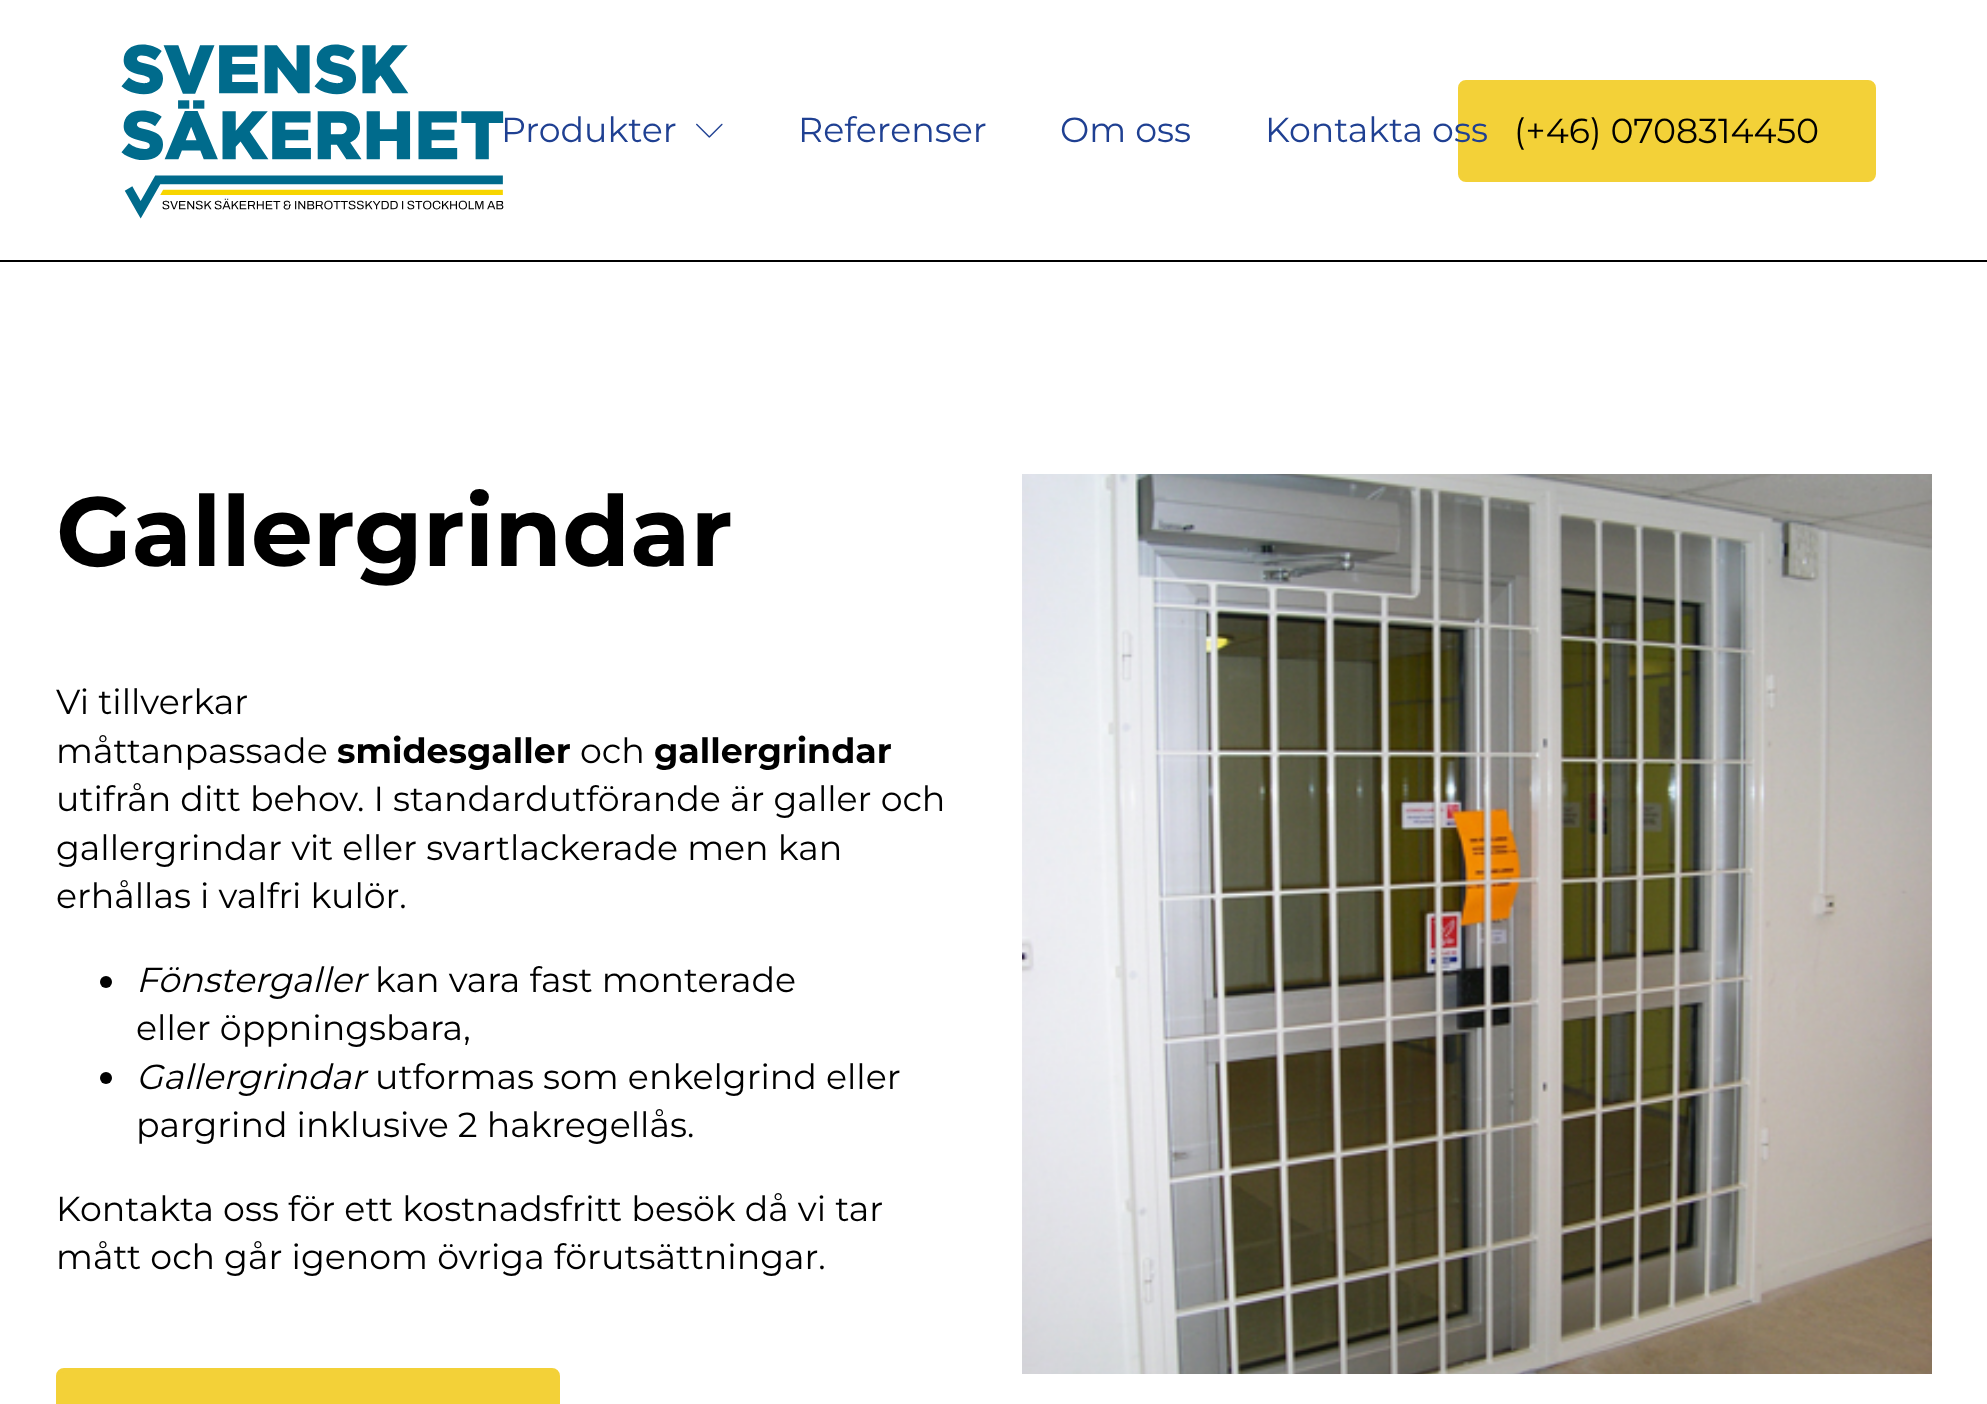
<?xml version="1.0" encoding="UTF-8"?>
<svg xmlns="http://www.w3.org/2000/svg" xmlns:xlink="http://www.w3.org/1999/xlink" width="1987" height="1404">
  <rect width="100%" height="100%" fill="#ffffff" />
  <rect y="260" width="1987" height="2" fill="#000000" />
  <image x="121" y="44" width="383" height="175" xlink:href="image1.png" />
  <image x="696" y="123" width="27" height="15" xlink:href="image2.png" />
  <rect x="1460" y="82" width="414" height="98" rx="6" fill="#f3d138" stroke="#f3d138" stroke-width="4" />
  <circle cx="106" cy="982" r="6" fill="#000000" />
  <circle cx="106" cy="1078" r="6" fill="#000000" />
  <rect x="58" y="1370" width="500" height="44" rx="6" fill="#f3d138" stroke="#f3d138" stroke-width="4" />
  <image x="1022" y="474" width="910" height="900" xlink:href="image3.png" />
  <text x="501" y="142" style="font-family: Montserrat; font-size: 34.8px; fill: #1f4092">Produkter</text>
  <text x="798" y="142" style="font-family: Montserrat; font-size: 34.8px; fill: #1f4092">Referenser</text>
  <text x="1060" y="142" style="font-family: Montserrat; font-size: 34.8px; fill: #1f4092">Om oss</text>
  <text x="1265" y="142" style="font-family: Montserrat; font-size: 34.8px; fill: #1f4092">Kontakta oss</text>
  <text x="1514" y="143" style="font-family: Montserrat; font-size: 34.8px; fill: #000000">(+46) 0708314450</text>
  <text x="56" y="566" style="font-family: Montserrat; font-size: 98px; font-weight: bold; fill: #000000">Gallergrindar</text>
  <text x="56" y="714" style="font-family: Montserrat; font-size: 34.8px; fill: #000000">Vi tillverkar</text>
  <text x="56" y="763" style="font-family: Montserrat; font-size: 34.8px; fill: #000000">måttanpassade</text>
  <text x="337" y="763" style="font-family: Montserrat; font-size: 34.8px; font-weight: bold; fill: #000000">smidesgaller</text>
  <text x="580" y="763" style="font-family: Montserrat; font-size: 34.8px; fill: #000000">och</text>
  <text x="654" y="763" style="font-family: Montserrat; font-size: 34.8px; font-weight: bold; fill: #000000">gallergrindar</text>
  <text x="56" y="811" style="font-family: Montserrat; font-size: 34.8px; fill: #000000">utifrån ditt behov. I standardutförande är galler och</text>
  <text x="56" y="860" style="font-family: Montserrat; font-size: 34.8px; fill: #000000">gallergrindar vit eller svartlackerade men kan</text>
  <text x="56" y="908" style="font-family: Montserrat; font-size: 34.8px; fill: #000000">erhållas i valfri kulör.</text>
  <text x="136" y="992" style="font-family: Montserrat; font-size: 34.8px; font-style: italic; fill: #000000">Fönstergaller</text>
  <text x="375" y="992" style="font-family: Montserrat; font-size: 34.8px; fill: #000000">kan vara fast monterade</text>
  <text x="136" y="1040" style="font-family: Montserrat; font-size: 34.8px; fill: #000000">eller öppningsbara,</text>
  <text x="136" y="1089" style="font-family: Montserrat; font-size: 34.8px; font-style: italic; fill: #000000">Gallergrindar</text>
  <text x="375" y="1089" style="font-family: Montserrat; font-size: 34.8px; fill: #000000">utformas som enkelgrind eller</text>
  <text x="136" y="1137" style="font-family: Montserrat; font-size: 34.8px; fill: #000000">pargrind inklusive 2 hakregellås.</text>
  <text x="56" y="1221" style="font-family: Montserrat; font-size: 34.8px; fill: #000000">Kontakta oss för ett kostnadsfritt besök då vi tar</text>
  <text x="56" y="1269" style="font-family: Montserrat; font-size: 34.8px; fill: #000000">mått och går igenom övriga förutsättningar.</text>
</svg>
